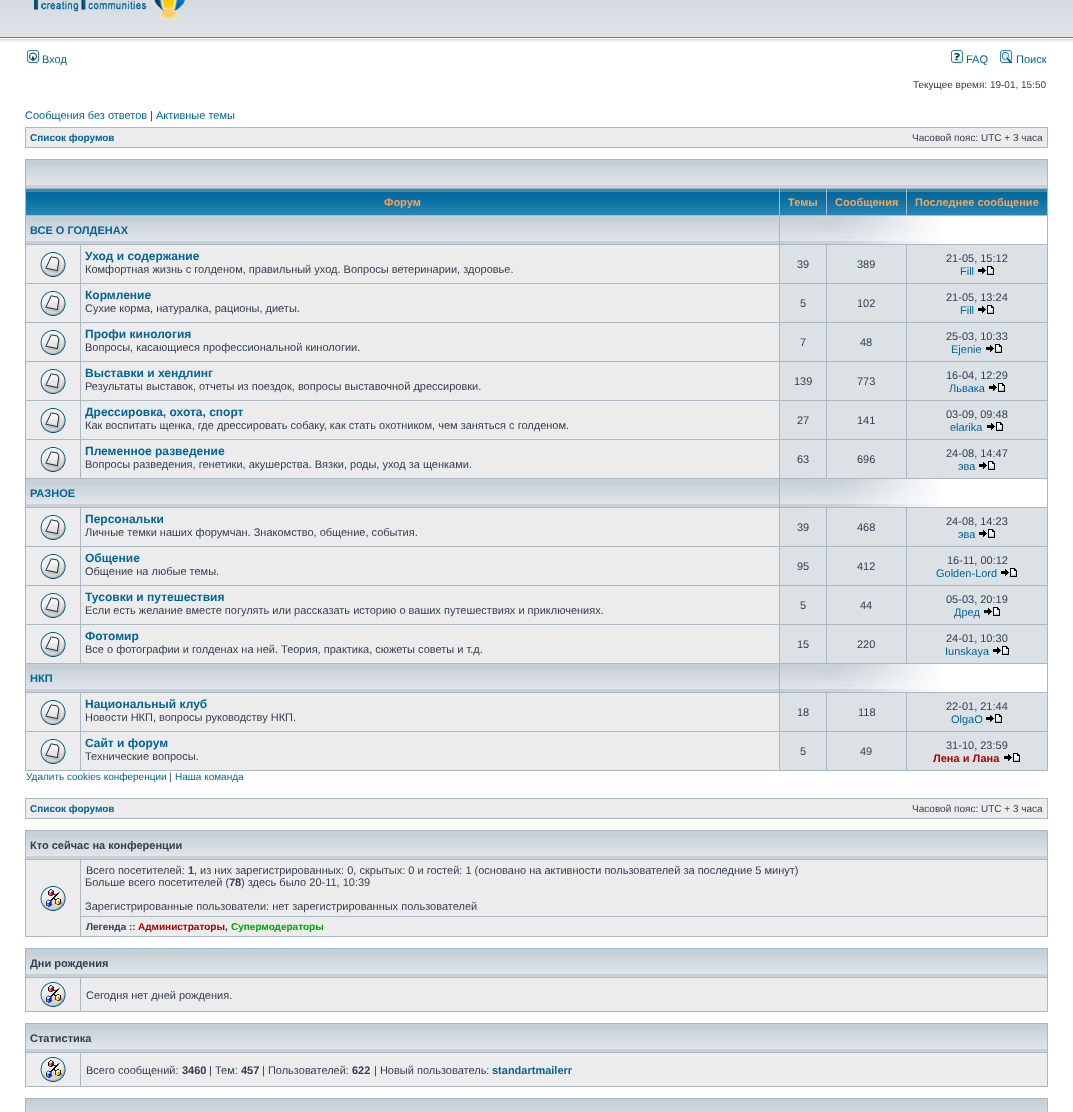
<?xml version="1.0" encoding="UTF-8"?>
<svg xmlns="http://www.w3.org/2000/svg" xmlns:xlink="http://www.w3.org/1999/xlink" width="1073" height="1112">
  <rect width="100%" height="100%" fill="#ffffff" />
  <image x="0" y="0" width="1073" height="48" xlink:href="image1.png" />
  <image x="34" y="0" width="151" height="20" xlink:href="image2.png" />
  <image x="27" y="50" width="12" height="13" xlink:href="image3.png" />
  <image x="951" y="50" width="12" height="13" xlink:href="image4.png" />
  <image x="1000" y="50" width="12" height="13" xlink:href="image5.png" />
  <rect x="25" y="127" width="1023" height="21" fill="#a9b8c2" />
  <rect x="26" y="128" width="1021" height="19" fill="#ececec" />
  <rect x="25" y="159" width="1023" height="612" fill="#a9b8c2" />
  <rect x="26" y="160" width="1021" height="28" fill="#c7d0d7" />
  <image x="26" y="166" width="1021" height="19" xlink:href="image6.png" />
  <image x="26" y="189" width="753" height="26" xlink:href="image7.png" />
  <image x="780" y="189" width="46" height="26" xlink:href="image8.png" />
  <image x="827" y="189" width="79" height="26" xlink:href="image9.png" />
  <image x="907" y="189" width="140" height="26" xlink:href="image10.png" />
  <rect x="26" y="216" width="753" height="28" fill="#c7d0d7" />
  <image x="26" y="222" width="753" height="19" xlink:href="image11.png" />
  <rect x="940" y="216" width="107" height="28" fill="#ffffff" />
  <image x="780" y="216" width="160" height="28" xlink:href="image12.png" />
  <rect x="26" y="245" width="54" height="38" fill="#ececec" />
  <image x="40" y="252" width="26" height="25" xlink:href="image13.png" />
  <rect x="81" y="245" width="698" height="38" fill="#ececec" />
  <rect x="780" y="245" width="46" height="38" fill="#dce1e5" />
  <rect x="827" y="245" width="79" height="38" fill="#dce1e5" />
  <rect x="907" y="245" width="140" height="38" fill="#dce1e5" />
  <image x="978" y="266" width="16" height="9" xlink:href="image14.png" />
  <rect x="26" y="284" width="54" height="38" fill="#ececec" />
  <image x="40" y="291" width="26" height="25" xlink:href="image13.png" />
  <rect x="81" y="284" width="698" height="38" fill="#ececec" />
  <rect x="780" y="284" width="46" height="38" fill="#dce1e5" />
  <rect x="827" y="284" width="79" height="38" fill="#dce1e5" />
  <rect x="907" y="284" width="140" height="38" fill="#dce1e5" />
  <image x="978" y="305" width="16" height="9" xlink:href="image14.png" />
  <rect x="26" y="323" width="54" height="38" fill="#ececec" />
  <image x="40" y="330" width="26" height="25" xlink:href="image13.png" />
  <rect x="81" y="323" width="698" height="38" fill="#ececec" />
  <rect x="780" y="323" width="46" height="38" fill="#dce1e5" />
  <rect x="827" y="323" width="79" height="38" fill="#dce1e5" />
  <rect x="907" y="323" width="140" height="38" fill="#dce1e5" />
  <image x="986" y="344" width="16" height="9" xlink:href="image14.png" />
  <rect x="26" y="362" width="54" height="38" fill="#ececec" />
  <image x="40" y="369" width="26" height="25" xlink:href="image13.png" />
  <rect x="81" y="362" width="698" height="38" fill="#ececec" />
  <rect x="780" y="362" width="46" height="38" fill="#dce1e5" />
  <rect x="827" y="362" width="79" height="38" fill="#dce1e5" />
  <rect x="907" y="362" width="140" height="38" fill="#dce1e5" />
  <image x="989" y="383" width="16" height="9" xlink:href="image14.png" />
  <rect x="26" y="401" width="54" height="38" fill="#ececec" />
  <image x="40" y="408" width="26" height="25" xlink:href="image13.png" />
  <rect x="81" y="401" width="698" height="38" fill="#ececec" />
  <rect x="780" y="401" width="46" height="38" fill="#dce1e5" />
  <rect x="827" y="401" width="79" height="38" fill="#dce1e5" />
  <rect x="907" y="401" width="140" height="38" fill="#dce1e5" />
  <image x="987" y="422" width="16" height="9" xlink:href="image14.png" />
  <rect x="26" y="440" width="54" height="38" fill="#ececec" />
  <image x="40" y="447" width="26" height="25" xlink:href="image13.png" />
  <rect x="81" y="440" width="698" height="38" fill="#ececec" />
  <rect x="780" y="440" width="46" height="38" fill="#dce1e5" />
  <rect x="827" y="440" width="79" height="38" fill="#dce1e5" />
  <rect x="907" y="440" width="140" height="38" fill="#dce1e5" />
  <image x="979" y="461" width="16" height="9" xlink:href="image14.png" />
  <rect x="26" y="479" width="753" height="28" fill="#c7d0d7" />
  <image x="26" y="485" width="753" height="19" xlink:href="image11.png" />
  <rect x="940" y="479" width="107" height="28" fill="#ffffff" />
  <image x="780" y="479" width="160" height="28" xlink:href="image12.png" />
  <rect x="26" y="508" width="54" height="38" fill="#ececec" />
  <image x="40" y="515" width="26" height="25" xlink:href="image13.png" />
  <rect x="81" y="508" width="698" height="38" fill="#ececec" />
  <rect x="780" y="508" width="46" height="38" fill="#dce1e5" />
  <rect x="827" y="508" width="79" height="38" fill="#dce1e5" />
  <rect x="907" y="508" width="140" height="38" fill="#dce1e5" />
  <image x="979" y="529" width="16" height="9" xlink:href="image14.png" />
  <rect x="26" y="547" width="54" height="38" fill="#ececec" />
  <image x="40" y="554" width="26" height="25" xlink:href="image13.png" />
  <rect x="81" y="547" width="698" height="38" fill="#ececec" />
  <rect x="780" y="547" width="46" height="38" fill="#dce1e5" />
  <rect x="827" y="547" width="79" height="38" fill="#dce1e5" />
  <rect x="907" y="547" width="140" height="38" fill="#dce1e5" />
  <image x="1001" y="568" width="16" height="9" xlink:href="image14.png" />
  <rect x="26" y="586" width="54" height="38" fill="#ececec" />
  <image x="40" y="593" width="26" height="25" xlink:href="image13.png" />
  <rect x="81" y="586" width="698" height="38" fill="#ececec" />
  <rect x="780" y="586" width="46" height="38" fill="#dce1e5" />
  <rect x="827" y="586" width="79" height="38" fill="#dce1e5" />
  <rect x="907" y="586" width="140" height="38" fill="#dce1e5" />
  <image x="984" y="607" width="16" height="9" xlink:href="image14.png" />
  <rect x="26" y="625" width="54" height="38" fill="#ececec" />
  <image x="40" y="632" width="26" height="25" xlink:href="image13.png" />
  <rect x="81" y="625" width="698" height="38" fill="#ececec" />
  <rect x="780" y="625" width="46" height="38" fill="#dce1e5" />
  <rect x="827" y="625" width="79" height="38" fill="#dce1e5" />
  <rect x="907" y="625" width="140" height="38" fill="#dce1e5" />
  <image x="993" y="646" width="16" height="9" xlink:href="image14.png" />
  <rect x="26" y="664" width="753" height="28" fill="#c7d0d7" />
  <image x="26" y="670" width="753" height="19" xlink:href="image11.png" />
  <rect x="940" y="664" width="107" height="28" fill="#ffffff" />
  <image x="780" y="664" width="160" height="28" xlink:href="image12.png" />
  <rect x="26" y="693" width="54" height="38" fill="#ececec" />
  <image x="40" y="700" width="26" height="25" xlink:href="image13.png" />
  <rect x="81" y="693" width="698" height="38" fill="#ececec" />
  <rect x="780" y="693" width="46" height="38" fill="#dce1e5" />
  <rect x="827" y="693" width="79" height="38" fill="#dce1e5" />
  <rect x="907" y="693" width="140" height="38" fill="#dce1e5" />
  <image x="986" y="714" width="16" height="9" xlink:href="image14.png" />
  <rect x="26" y="732" width="54" height="38" fill="#ececec" />
  <image x="40" y="739" width="26" height="25" xlink:href="image13.png" />
  <rect x="81" y="732" width="698" height="38" fill="#ececec" />
  <rect x="780" y="732" width="46" height="38" fill="#dce1e5" />
  <rect x="827" y="732" width="79" height="38" fill="#dce1e5" />
  <rect x="907" y="732" width="140" height="38" fill="#dce1e5" />
  <image x="1004" y="753" width="16" height="9" xlink:href="image14.png" />
  <rect x="25" y="798" width="1023" height="21" fill="#a9b8c2" />
  <rect x="26" y="799" width="1021" height="19" fill="#ececec" />
  <rect x="25" y="830" width="1023" height="107" fill="#a9b8c2" />
  <rect x="26" y="831" width="1021" height="28" fill="#c7d0d7" />
  <image x="26" y="837" width="1021" height="19" xlink:href="image6.png" />
  <rect x="26" y="860" width="54" height="76" fill="#ececec" />
  <image x="40" y="886" width="26" height="25" xlink:href="image15.png" />
  <rect x="81" y="860" width="966" height="56" fill="#ececec" />
  <rect x="81" y="917" width="966" height="19" fill="#ececec" />
  <rect x="25" y="948" width="1023" height="64" fill="#a9b8c2" />
  <rect x="26" y="949" width="1021" height="28" fill="#c7d0d7" />
  <image x="26" y="955" width="1021" height="19" xlink:href="image6.png" />
  <rect x="26" y="978" width="54" height="33" fill="#ececec" />
  <image x="40" y="982" width="26" height="25" xlink:href="image15.png" />
  <rect x="81" y="978" width="966" height="33" fill="#ececec" />
  <rect x="25" y="1023" width="1023" height="64" fill="#a9b8c2" />
  <rect x="26" y="1024" width="1021" height="28" fill="#c7d0d7" />
  <image x="26" y="1030" width="1021" height="19" xlink:href="image6.png" />
  <rect x="26" y="1053" width="54" height="33" fill="#ececec" />
  <image x="40" y="1057" width="26" height="25" xlink:href="image15.png" />
  <rect x="81" y="1053" width="966" height="33" fill="#ececec" />
  <rect x="25" y="1098" width="1023" height="14" fill="#a9b8c2" />
  <rect x="26" y="1099" width="1021" height="6" fill="#c7d0d7" />
  <image x="26" y="1105" width="1021" height="7" xlink:href="image16.png" />
  <text x="42" y="63" style="font-family: Liberation Sans; font-size: 11px; fill: #006597">Вход</text>
  <text x="966" y="63" style="font-family: Liberation Sans; font-size: 11px; fill: #006597">FAQ</text>
  <text x="1016" y="63" style="font-family: Liberation Sans; font-size: 11px; fill: #006597">Поиск</text>
  <text x="913" y="88" style="font-family: Liberation Sans; font-size: 10px; fill: #323d4f">Текущее время: 19-01, 15:50</text>
  <text x="25" y="119" style="font-family: Liberation Sans; font-size: 11px; fill: #006597">Сообщения без ответов</text>
  <text x="150" y="119" style="font-family: Liberation Sans; font-size: 11px; fill: #323d4f">|</text>
  <text x="156" y="119" style="font-family: Liberation Sans; font-size: 11px; fill: #006597">Активные темы</text>
  <text x="30" y="141" style="font-family: Liberation Sans; font-size: 10px; font-weight: bold; fill: #006597">Список форумов</text>
  <text x="912" y="141" style="font-family: Liberation Sans; font-size: 10px; fill: #323d4f">Часовой пояс: UTC + 3 часа</text>
  <text x="384" y="206" style="font-family: Liberation Sans; font-size: 11px; font-weight: bold; fill: #ffa34f">Форум</text>
  <text x="788" y="206" style="font-family: Liberation Sans; font-size: 11px; font-weight: bold; fill: #ffa34f">Темы</text>
  <text x="835" y="206" style="font-family: Liberation Sans; font-size: 11px; font-weight: bold; fill: #ffa34f">Сообщения</text>
  <text x="915" y="206" style="font-family: Liberation Sans; font-size: 11px; font-weight: bold; fill: #ffa34f">Последнее сообщение</text>
  <text x="30" y="234" style="font-family: Liberation Sans; font-size: 11px; font-weight: bold; fill: #006597">ВСЕ О ГОЛДЕНАХ</text>
  <text x="85" y="260" style="font-family: Liberation Sans; font-size: 12px; font-weight: bold; fill: #006597">Уход и содержание</text>
  <text x="85" y="273" style="font-family: Liberation Sans; font-size: 11px; fill: #323d4f">Комфортная жизнь с голденом, правильный уход. Вопросы ветеринарии, здоровье.</text>
  <text x="797" y="268" style="font-family: Liberation Sans; font-size: 11px; fill: #323d4f">39</text>
  <text x="857" y="268" style="font-family: Liberation Sans; font-size: 11px; fill: #323d4f">389</text>
  <text x="946" y="262" style="font-family: Liberation Sans; font-size: 11px; fill: #323d4f">21-05, 15:12</text>
  <text x="960" y="275" style="font-family: Liberation Sans; font-size: 11px; fill: #006597">Fill</text>
  <text x="85" y="299" style="font-family: Liberation Sans; font-size: 12px; font-weight: bold; fill: #006597">Кормление</text>
  <text x="85" y="312" style="font-family: Liberation Sans; font-size: 11px; fill: #323d4f">Сухие корма, натуралка, рационы, диеты.</text>
  <text x="800" y="307" style="font-family: Liberation Sans; font-size: 11px; fill: #323d4f">5</text>
  <text x="857" y="307" style="font-family: Liberation Sans; font-size: 11px; fill: #323d4f">102</text>
  <text x="946" y="301" style="font-family: Liberation Sans; font-size: 11px; fill: #323d4f">21-05, 13:24</text>
  <text x="960" y="314" style="font-family: Liberation Sans; font-size: 11px; fill: #006597">Fill</text>
  <text x="85" y="338" style="font-family: Liberation Sans; font-size: 12px; font-weight: bold; fill: #006597">Профи кинология</text>
  <text x="85" y="351" style="font-family: Liberation Sans; font-size: 11px; fill: #323d4f">Вопросы, касающиеся профессиональной кинологии.</text>
  <text x="800" y="346" style="font-family: Liberation Sans; font-size: 11px; fill: #323d4f">7</text>
  <text x="860" y="346" style="font-family: Liberation Sans; font-size: 11px; fill: #323d4f">48</text>
  <text x="946" y="340" style="font-family: Liberation Sans; font-size: 11px; fill: #323d4f">25-03, 10:33</text>
  <text x="951" y="353" style="font-family: Liberation Sans; font-size: 11px; fill: #006597">Ejenie</text>
  <text x="85" y="377" style="font-family: Liberation Sans; font-size: 12px; font-weight: bold; fill: #006597">Выставки и хендлинг</text>
  <text x="85" y="390" style="font-family: Liberation Sans; font-size: 11px; fill: #323d4f">Результаты выставок, отчеты из поездок, вопросы выставочной дрессировки.</text>
  <text x="794" y="385" style="font-family: Liberation Sans; font-size: 11px; fill: #323d4f">139</text>
  <text x="857" y="385" style="font-family: Liberation Sans; font-size: 11px; fill: #323d4f">773</text>
  <text x="946" y="379" style="font-family: Liberation Sans; font-size: 11px; fill: #323d4f">16-04, 12:29</text>
  <text x="949" y="392" style="font-family: Liberation Sans; font-size: 11px; fill: #006597">Львака</text>
  <text x="85" y="416" style="font-family: Liberation Sans; font-size: 12px; font-weight: bold; fill: #006597">Дрессировка, охота, спорт</text>
  <text x="85" y="429" style="font-family: Liberation Sans; font-size: 11px; fill: #323d4f">Как воспитать щенка, где дрессировать собаку, как стать охотником, чем заняться с голденом.</text>
  <text x="797" y="424" style="font-family: Liberation Sans; font-size: 11px; fill: #323d4f">27</text>
  <text x="857" y="424" style="font-family: Liberation Sans; font-size: 11px; fill: #323d4f">141</text>
  <text x="946" y="418" style="font-family: Liberation Sans; font-size: 11px; fill: #323d4f">03-09, 09:48</text>
  <text x="950" y="431" style="font-family: Liberation Sans; font-size: 11px; fill: #006597">elarika</text>
  <text x="85" y="455" style="font-family: Liberation Sans; font-size: 12px; font-weight: bold; fill: #006597">Племенное разведение</text>
  <text x="85" y="468" style="font-family: Liberation Sans; font-size: 11px; fill: #323d4f">Вопросы разведения, генетики, акушерства. Вязки, роды, уход за щенками.</text>
  <text x="797" y="463" style="font-family: Liberation Sans; font-size: 11px; fill: #323d4f">63</text>
  <text x="857" y="463" style="font-family: Liberation Sans; font-size: 11px; fill: #323d4f">696</text>
  <text x="946" y="457" style="font-family: Liberation Sans; font-size: 11px; fill: #323d4f">24-08, 14:47</text>
  <text x="958" y="470" style="font-family: Liberation Sans; font-size: 11px; fill: #006597">эва</text>
  <text x="30" y="497" style="font-family: Liberation Sans; font-size: 11px; font-weight: bold; fill: #006597">РАЗНОЕ</text>
  <text x="85" y="523" style="font-family: Liberation Sans; font-size: 12px; font-weight: bold; fill: #006597">Персональки</text>
  <text x="85" y="536" style="font-family: Liberation Sans; font-size: 11px; fill: #323d4f">Личные темки наших форумчан. Знакомство, общение, события.</text>
  <text x="797" y="531" style="font-family: Liberation Sans; font-size: 11px; fill: #323d4f">39</text>
  <text x="857" y="531" style="font-family: Liberation Sans; font-size: 11px; fill: #323d4f">468</text>
  <text x="946" y="525" style="font-family: Liberation Sans; font-size: 11px; fill: #323d4f">24-08, 14:23</text>
  <text x="958" y="538" style="font-family: Liberation Sans; font-size: 11px; fill: #006597">эва</text>
  <text x="85" y="562" style="font-family: Liberation Sans; font-size: 12px; font-weight: bold; fill: #006597">Общение</text>
  <text x="85" y="575" style="font-family: Liberation Sans; font-size: 11px; fill: #323d4f">Общение на любые темы.</text>
  <text x="797" y="570" style="font-family: Liberation Sans; font-size: 11px; fill: #323d4f">95</text>
  <text x="857" y="570" style="font-family: Liberation Sans; font-size: 11px; fill: #323d4f">412</text>
  <text x="947" y="564" style="font-family: Liberation Sans; font-size: 11px; fill: #323d4f">16-11, 00:12</text>
  <text x="936" y="577" style="font-family: Liberation Sans; font-size: 11px; fill: #006597">Golden-Lord</text>
  <text x="85" y="601" style="font-family: Liberation Sans; font-size: 12px; font-weight: bold; fill: #006597">Тусовки и путешествия</text>
  <text x="85" y="614" style="font-family: Liberation Sans; font-size: 11px; fill: #323d4f">Если есть желание вместе погулять или рассказать историю о ваших путешествиях и приключениях.</text>
  <text x="800" y="609" style="font-family: Liberation Sans; font-size: 11px; fill: #323d4f">5</text>
  <text x="860" y="609" style="font-family: Liberation Sans; font-size: 11px; fill: #323d4f">44</text>
  <text x="946" y="603" style="font-family: Liberation Sans; font-size: 11px; fill: #323d4f">05-03, 20:19</text>
  <text x="954" y="616" style="font-family: Liberation Sans; font-size: 11px; fill: #006597">Дред</text>
  <text x="85" y="640" style="font-family: Liberation Sans; font-size: 12px; font-weight: bold; fill: #006597">Фотомир</text>
  <text x="85" y="653" style="font-family: Liberation Sans; font-size: 11px; fill: #323d4f">Все о фотографии и голденах на ней. Теория, практика, сюжеты советы и т.д.</text>
  <text x="797" y="648" style="font-family: Liberation Sans; font-size: 11px; fill: #323d4f">15</text>
  <text x="857" y="648" style="font-family: Liberation Sans; font-size: 11px; fill: #323d4f">220</text>
  <text x="946" y="642" style="font-family: Liberation Sans; font-size: 11px; fill: #323d4f">24-01, 10:30</text>
  <text x="945" y="655" style="font-family: Liberation Sans; font-size: 11px; fill: #006597">Iunskaya</text>
  <text x="30" y="682" style="font-family: Liberation Sans; font-size: 11px; font-weight: bold; fill: #006597">НКП</text>
  <text x="85" y="708" style="font-family: Liberation Sans; font-size: 12px; font-weight: bold; fill: #006597">Национальный клуб</text>
  <text x="85" y="721" style="font-family: Liberation Sans; font-size: 11px; fill: #323d4f">Новости НКП, вопросы руководству НКП.</text>
  <text x="797" y="716" style="font-family: Liberation Sans; font-size: 11px; fill: #323d4f">18</text>
  <text x="858" y="716" style="font-family: Liberation Sans; font-size: 11px; fill: #323d4f">118</text>
  <text x="946" y="710" style="font-family: Liberation Sans; font-size: 11px; fill: #323d4f">22-01, 21:44</text>
  <text x="951" y="723" style="font-family: Liberation Sans; font-size: 11px; fill: #006597">OlgaO</text>
  <text x="85" y="747" style="font-family: Liberation Sans; font-size: 12px; font-weight: bold; fill: #006597">Сайт и форум</text>
  <text x="85" y="760" style="font-family: Liberation Sans; font-size: 11px; fill: #323d4f">Технические вопросы.</text>
  <text x="800" y="755" style="font-family: Liberation Sans; font-size: 11px; fill: #323d4f">5</text>
  <text x="860" y="755" style="font-family: Liberation Sans; font-size: 11px; fill: #323d4f">49</text>
  <text x="946" y="749" style="font-family: Liberation Sans; font-size: 11px; fill: #323d4f">31-10, 23:59</text>
  <text x="933" y="762" style="font-family: Liberation Sans; font-size: 11px; font-weight: bold; fill: #aa0000">Лена и Лана</text>
  <text x="26" y="780" style="font-family: Liberation Sans; font-size: 10px; fill: #006597">Удалить cookies конференции</text>
  <text x="169" y="780" style="font-family: Liberation Sans; font-size: 10px; fill: #323d4f">|</text>
  <text x="175" y="780" style="font-family: Liberation Sans; font-size: 10px; fill: #006597">Наша команда</text>
  <text x="30" y="812" style="font-family: Liberation Sans; font-size: 10px; font-weight: bold; fill: #006597">Список форумов</text>
  <text x="912" y="812" style="font-family: Liberation Sans; font-size: 10px; fill: #323d4f">Часовой пояс: UTC + 3 часа</text>
  <text x="30" y="849" style="font-family: Liberation Sans; font-size: 11px; font-weight: bold; fill: #323d4f">Кто сейчас на конференции</text>
  <text x="86" y="874" style="font-family: Liberation Sans; font-size: 11px; fill: #323d4f">Всего посетителей:</text>
  <text x="188" y="874" style="font-family: Liberation Sans; font-size: 11px; font-weight: bold; fill: #323d4f">1</text>
  <text x="194" y="874" style="font-family: Liberation Sans; font-size: 11px; fill: #323d4f">, из них зарегистрированных: 0, скрытых: 0 и гостей: 1 (основано на активности пользователей за последние 5 минут)</text>
  <text x="85" y="886" style="font-family: Liberation Sans; font-size: 11px; fill: #323d4f">Больше всего посетителей (</text>
  <text x="229" y="886" style="font-family: Liberation Sans; font-size: 11px; font-weight: bold; fill: #323d4f">78</text>
  <text x="241" y="886" style="font-family: Liberation Sans; font-size: 11px; fill: #323d4f">) здесь было 20-11, 10:39</text>
  <text x="85" y="910" style="font-family: Liberation Sans; font-size: 11px; fill: #323d4f">Зарегистрированные пользователи: нет зарегистрированных пользователей</text>
  <text x="86" y="930" style="font-family: Liberation Sans; font-size: 10px; font-weight: bold; fill: #323d4f">Легенда ::</text>
  <text x="138" y="930" style="font-family: Liberation Sans; font-size: 10px; font-weight: bold; fill: #aa0000">Администраторы</text>
  <text x="225" y="930" style="font-family: Liberation Sans; font-size: 10px; font-weight: bold; fill: #323d4f">,</text>
  <text x="231" y="930" style="font-family: Liberation Sans; font-size: 10px; font-weight: bold; fill: #00aa00">Супермодераторы</text>
  <text x="30" y="967" style="font-family: Liberation Sans; font-size: 11px; font-weight: bold; fill: #323d4f">Дни рождения</text>
  <text x="86" y="999" style="font-family: Liberation Sans; font-size: 11px; fill: #323d4f">Сегодня нет дней рождения.</text>
  <text x="30" y="1042" style="font-family: Liberation Sans; font-size: 11px; font-weight: bold; fill: #323d4f">Статистика</text>
  <text x="86" y="1074" style="font-family: Liberation Sans; font-size: 11px; fill: #323d4f">Всего сообщений:</text>
  <text x="182" y="1074" style="font-family: Liberation Sans; font-size: 11px; font-weight: bold; fill: #323d4f">3460</text>
  <text x="209" y="1074" style="font-family: Liberation Sans; font-size: 11px; fill: #323d4f">| Тем:</text>
  <text x="241" y="1074" style="font-family: Liberation Sans; font-size: 11px; font-weight: bold; fill: #323d4f">457</text>
  <text x="262" y="1074" style="font-family: Liberation Sans; font-size: 11px; fill: #323d4f">| Пользователей:</text>
  <text x="352" y="1074" style="font-family: Liberation Sans; font-size: 11px; font-weight: bold; fill: #323d4f">622</text>
  <text x="374" y="1074" style="font-family: Liberation Sans; font-size: 11px; fill: #323d4f">| Новый пользователь:</text>
  <text x="492" y="1074" style="font-family: Liberation Sans; font-size: 11px; font-weight: bold; fill: #006597">standartmailerr</text>
</svg>
